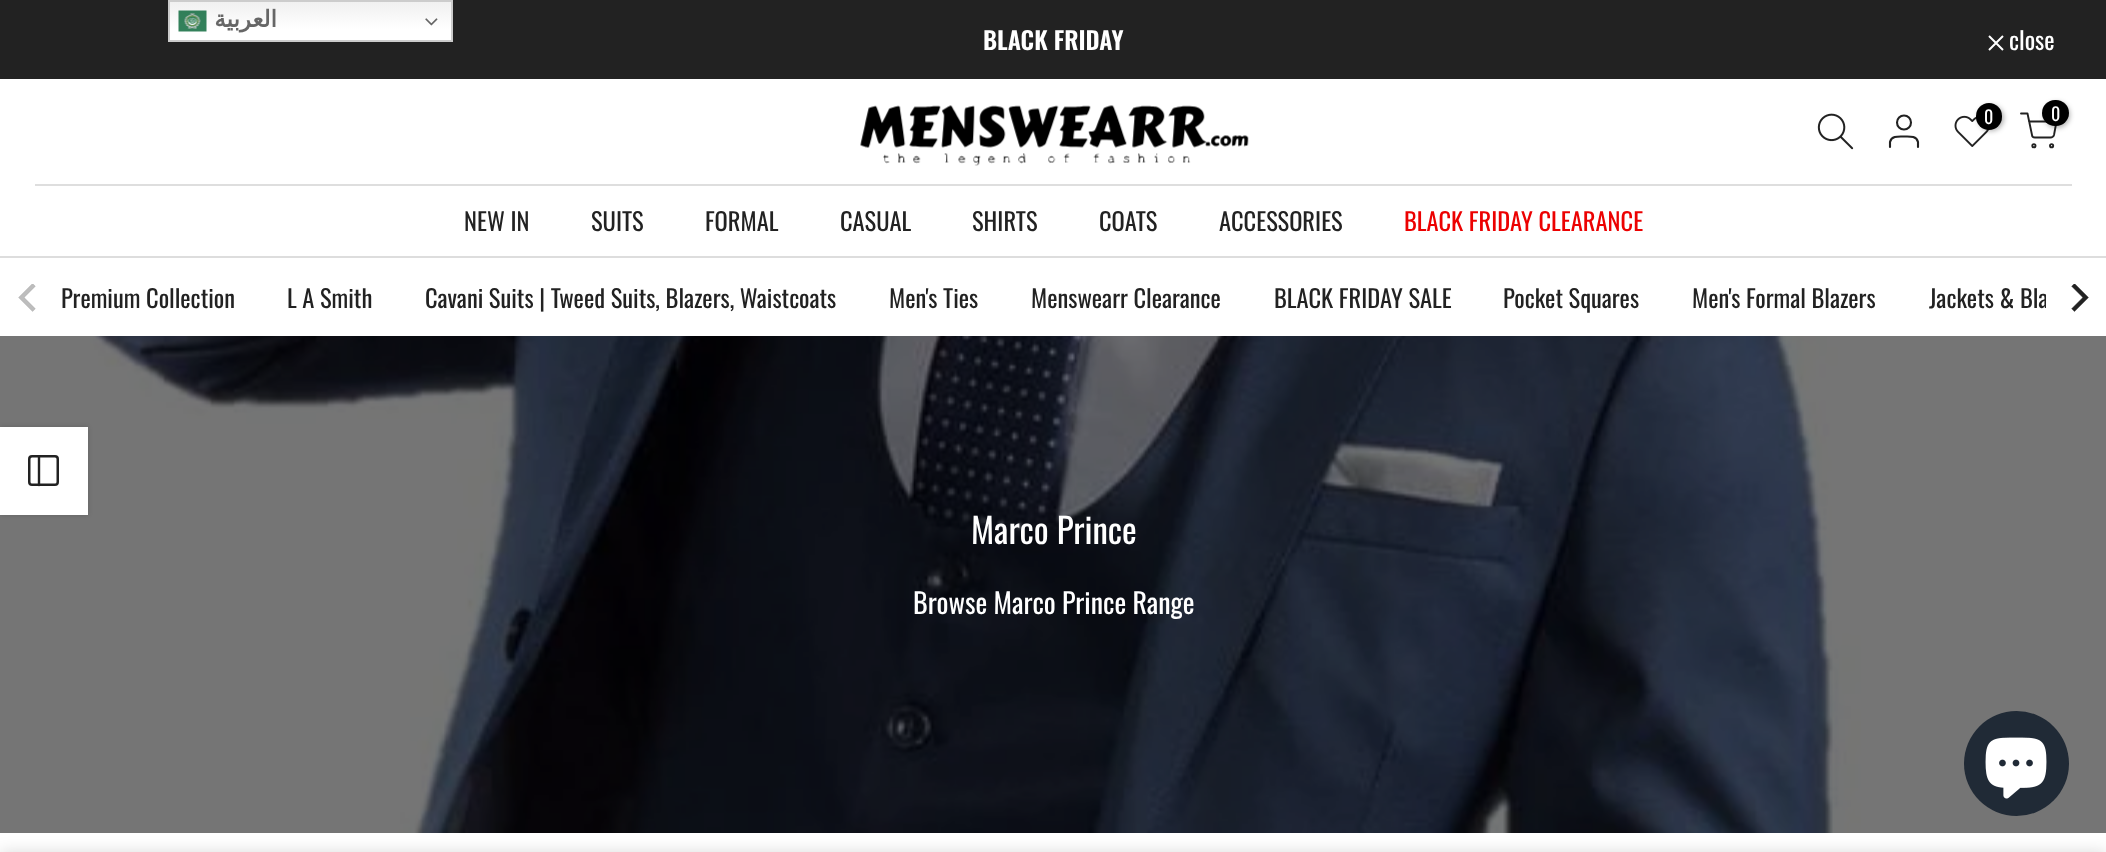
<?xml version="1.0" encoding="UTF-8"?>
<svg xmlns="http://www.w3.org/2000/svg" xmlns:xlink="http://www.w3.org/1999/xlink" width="2106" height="852">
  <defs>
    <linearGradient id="g1" gradientUnits="userSpaceOnUse" x1="311" y1="0" x2="311" y2="42"><stop offset="0" stop-color="#efefef" /><stop offset="0.7" stop-color="#ffffff" /></linearGradient>
    <clipPath id="clip1"><rect x="61" y="257" width="1985" height="79" /></clipPath>
  </defs>
  <rect width="100%" height="100%" fill="#ffffff" />
  <rect y="336" width="2106" height="497" fill="#757575" />
  <rect width="2106" height="79" fill="#222222" />
  <rect x="170" y="2" width="281" height="38" fill="url(#g1)" />
  <rect x="169" y="1" width="283" height="40" fill="none" stroke="#cccccc" stroke-width="2" />
  <image x="178" y="10" width="29" height="22" xlink:href="image1.png" />
  <image x="425" y="18" width="13" height="8" xlink:href="image2.png" />
  <image x="90" y="336" width="1771" height="497" xlink:href="image8.png" />
  <rect y="852" width="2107" height="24" fill="#000000" fill-opacity="0.14" filter="blur(8px)" />
  <path d="M 2003 36 l -14 14 m 14 0 l -14 -14" fill="none" stroke="#ffffff" stroke-width="2" />
  <rect x="35" y="184" width="2037" height="2" fill="#dedede" />
  <image x="860" y="105" width="389" height="61" xlink:href="image3.png" />
  <image x="1817" y="113" width="37" height="37" xlink:href="image4.png" />
  <circle cx="1904" cy="122.5" r="7" fill="none" stroke="#222222" stroke-width="2.1" />
  <path d="M 1918 147 v -5 c -1.5 -6.5 -9 -5.5 -14 -5.5 c -5 0 -12.5 -1 -14 5.5 v 5" fill="none" stroke="#222222" stroke-width="2.1" stroke-linecap="round" stroke-linejoin="round" />
  <image x="1954" y="115" width="36" height="32" xlink:href="image5.png" />
  <rect x="1978" y="105" width="26" height="26" rx="13" fill="#000000" fill-opacity="0.3" filter="blur(2.5px)" />
  <rect x="1976" y="103" width="26" height="27" rx="13" fill="#000000" />
  <path d="M 2021 113.5 h 6.5 l 4.5 21.5 c 0 1.5 1.5 2.5 3 2.5 h 15.5 c 1.5 0 3 -1 3.5 -2.5 l 2.5 -13.5 h -27.5" fill="none" stroke="#222222" stroke-width="1.9" stroke-linecap="round" stroke-linejoin="round" />
  <rect x="2044" y="102" width="26" height="26" rx="13" fill="#000000" fill-opacity="0.3" filter="blur(2.5px)" />
  <rect x="2042" y="100" width="27" height="26" rx="13" fill="#000000" />
  <circle cx="2033.9" cy="145.7" r="1.6" fill="none" stroke="#222222" stroke-width="1.9" />
  <circle cx="2051.6" cy="145.7" r="1.6" fill="none" stroke="#222222" stroke-width="1.9" />
  <rect y="256" width="2106" height="2" fill="#dddddd" />
  <image x="18" y="284" width="18" height="28" xlink:href="image6.png" />
  <image x="2071" y="284" width="18" height="28" xlink:href="image7.png" />
  <rect y="427" width="88" height="88" fill="#000000" fill-opacity="0.15" filter="blur(2.5px)" />
  <rect y="427" width="88" height="88" fill="#ffffff" />
  <rect x="29.25" y="456.25" width="28.5" height="28.5" rx="2.75" fill="none" stroke="#222222" stroke-width="2.5" />
  <path d="M 39 456.5 v 28.5" fill="none" stroke="#222222" stroke-width="2.4" stroke-linecap="round" stroke-linejoin="round" />
  <circle cx="2016.5" cy="763.5" r="52.5" fill="#202a36" />
  <image x="1985" y="737" width="62" height="62" xlink:href="image9.png" />
  <text x="277" y="27" style="font-family: DejaVu Sans; font-size: 23px; font-weight: bold; direction: rtl; fill: #666666">العربية</text>
  <text x="983" y="50" style="font-family: Oswald; font-size: 24.5px; font-weight: 600; fill: #ffffff">BLACK FRIDAY</text>
  <text x="2009" y="50" style="font-family: Oswald; font-size: 24.5px; fill: #ffffff">close</text>
  <text x="1984" y="124" style="font-family: Oswald; font-size: 18px; fill: #ffffff">0</text>
  <text x="2051" y="121" style="font-family: Oswald; font-size: 18px; fill: #ffffff">0</text>
  <text x="464" y="231" style="font-family: Oswald; font-size: 24.5px; fill: #222222">NEW IN</text>
  <text x="591" y="231" style="font-family: Oswald; font-size: 24.5px; fill: #222222">SUITS</text>
  <text x="705" y="231" style="font-family: Oswald; font-size: 24.5px; fill: #222222">FORMAL</text>
  <text x="840" y="231" style="font-family: Oswald; font-size: 24.5px; fill: #222222">CASUAL</text>
  <text x="972" y="231" style="font-family: Oswald; font-size: 24.5px; fill: #222222">SHIRTS</text>
  <text x="1099" y="231" style="font-family: Oswald; font-size: 24.5px; fill: #222222">COATS</text>
  <text x="1219" y="231" style="font-family: Oswald; font-size: 24.5px; fill: #222222">ACCESSORIES</text>
  <text x="1404" y="231" style="font-family: Oswald; font-size: 24.5px; fill: #ec0101">BLACK FRIDAY CLEARANCE</text>
  <text x="61" y="308" style="font-family: Oswald; font-size: 24.5px; fill: #222222">Premium Collection</text>
  <text x="287" y="308" style="font-family: Oswald; font-size: 24.5px; fill: #222222">L A Smith</text>
  <text x="425" y="308" style="font-family: Oswald; font-size: 24.5px; fill: #222222">Cavani Suits | Tweed Suits, Blazers, Waistcoats</text>
  <text x="889" y="308" style="font-family: Oswald; font-size: 24.5px; fill: #222222">Men's Ties</text>
  <text x="1031" y="308" style="font-family: Oswald; font-size: 24.5px; fill: #222222">Menswearr Clearance</text>
  <text x="1274" y="308" style="font-family: Oswald; font-size: 24.5px; fill: #222222">BLACK FRIDAY SALE</text>
  <text x="1503" y="308" style="font-family: Oswald; font-size: 24.5px; fill: #222222">Pocket Squares</text>
  <text x="1692" y="308" style="font-family: Oswald; font-size: 24.5px; fill: #222222">Men's Formal Blazers</text>
  <g clip-path="url(#clip1)">
    <text x="1929" y="308" style="font-family: Oswald; font-size: 24.5px; fill: #222222">Jackets &amp; Bla</text>
  </g>
  <text x="971" y="544" style="font-family: Oswald; font-size: 35px; fill: #ffffff">Marco Prince</text>
  <text x="913" y="614" style="font-family: Oswald; font-size: 28px; fill: #ffffff">Browse Marco Prince Range</text>
</svg>
